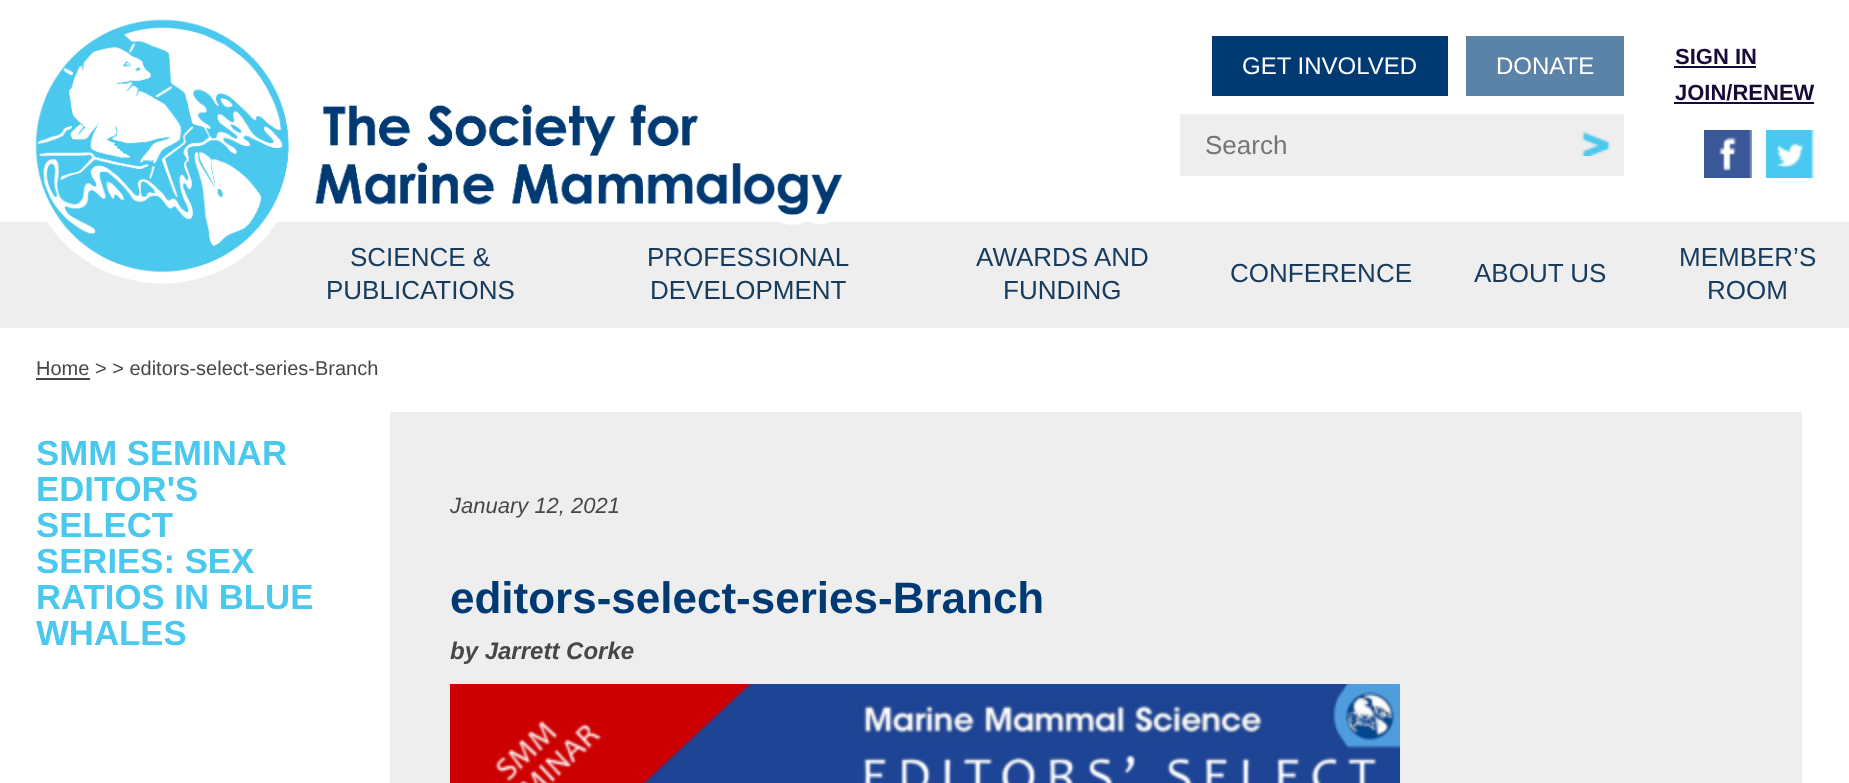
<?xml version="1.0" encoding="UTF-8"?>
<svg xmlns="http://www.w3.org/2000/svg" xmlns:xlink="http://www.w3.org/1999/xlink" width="1849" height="783">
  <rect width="100%" height="100%" fill="#ffffff" />
  <rect y="222" width="1849" height="106" fill="#eeeeee" />
  <image x="35" y="19" width="808" height="265" xlink:href="image1.png" />
  <rect x="1212" y="36" width="236" height="60" fill="#013a73" />
  <rect x="1466" y="36" width="158" height="60" fill="#5a83a7" />
  <rect x="1180" y="114" width="444" height="62" fill="#eeeeee" />
  <image x="1581" y="131" width="30" height="25" xlink:href="image2.png" />
  <rect x="1674" y="66" width="82" height="2" fill="#17093a" />
  <rect x="1674" y="102" width="140" height="2" fill="#17093a" />
  <image x="1704" y="130" width="48" height="48" xlink:href="image3.png" />
  <image x="1766" y="130" width="48" height="48" xlink:href="image4.png" />
  <rect x="36" y="378" width="54" height="2" fill="#474747" />
  <rect x="390" y="412" width="1412" height="371" fill="#eeeeee" />
  <image x="450" y="684" width="950" height="99" xlink:href="image5.png" />
  <text x="1242" y="74" style="font-family: Liberation Sans; font-size: 24px; fill: #ffffff">GET INVOLVED</text>
  <text x="1496" y="74" style="font-family: Liberation Sans; font-size: 24px; fill: #ffffff">DONATE</text>
  <text x="1205" y="154" style="font-family: Liberation Sans; font-size: 26px; fill: #757575">Search</text>
  <text x="1675" y="64" style="font-family: Liberation Sans; font-size: 22px; font-weight: bold; fill: #17093a">SIGN IN</text>
  <text x="1675" y="100" style="font-family: Liberation Sans; font-size: 22px; font-weight: bold; fill: #17093a">JOIN/RENEW</text>
  <text x="350" y="266" style="font-family: Liberation Sans; font-size: 26px; fill: #173b5d">SCIENCE &amp;</text>
  <text x="326" y="299" style="font-family: Liberation Sans; font-size: 26px; fill: #173b5d">PUBLICATIONS</text>
  <text x="647" y="266" style="font-family: Liberation Sans; font-size: 26px; fill: #173b5d">PROFESSIONAL</text>
  <text x="650" y="299" style="font-family: Liberation Sans; font-size: 26px; fill: #173b5d">DEVELOPMENT</text>
  <text x="976" y="266" style="font-family: Liberation Sans; font-size: 26px; fill: #173b5d">AWARDS AND</text>
  <text x="1003" y="299" style="font-family: Liberation Sans; font-size: 26px; fill: #173b5d">FUNDING</text>
  <text x="1230" y="282" style="font-family: Liberation Sans; font-size: 26px; fill: #173b5d">CONFERENCE</text>
  <text x="1474" y="282" style="font-family: Liberation Sans; font-size: 26px; fill: #173b5d">ABOUT US</text>
  <text x="1679" y="266" style="font-family: Liberation Sans; font-size: 26px; fill: #173b5d">MEMBER’S</text>
  <text x="1707" y="299" style="font-family: Liberation Sans; font-size: 26px; fill: #173b5d">ROOM</text>
  <text x="36" y="375" style="font-family: Liberation Sans; font-size: 20px; fill: #474747">Home &gt; &gt; editors-select-series-Branch</text>
  <text x="36" y="465" style="font-family: Liberation Sans; font-size: 34.75px; font-weight: bold; fill: #4bc8ee">SMM SEMINAR</text>
  <text x="36" y="501" style="font-family: Liberation Sans; font-size: 34.75px; font-weight: bold; fill: #4bc8ee">EDITOR'S</text>
  <text x="36" y="537" style="font-family: Liberation Sans; font-size: 34.75px; font-weight: bold; fill: #4bc8ee">SELECT</text>
  <text x="36" y="573" style="font-family: Liberation Sans; font-size: 34.75px; font-weight: bold; fill: #4bc8ee">SERIES: SEX</text>
  <text x="36" y="609" style="font-family: Liberation Sans; font-size: 34.75px; font-weight: bold; fill: #4bc8ee">RATIOS IN BLUE</text>
  <text x="36" y="645" style="font-family: Liberation Sans; font-size: 34.75px; font-weight: bold; fill: #4bc8ee">WHALES</text>
  <text x="450" y="513" style="font-family: Liberation Sans; font-size: 22px; font-style: italic; fill: #474747">January 12, 2021</text>
  <text x="450" y="613" style="font-family: Liberation Sans; font-size: 44px; font-weight: bold; fill: #013a73">editors-select-series-Branch</text>
  <text x="450" y="659" style="font-family: Liberation Sans; font-size: 24px; font-weight: bold; font-style: italic; fill: #474747">by Jarrett Corke</text>
</svg>
